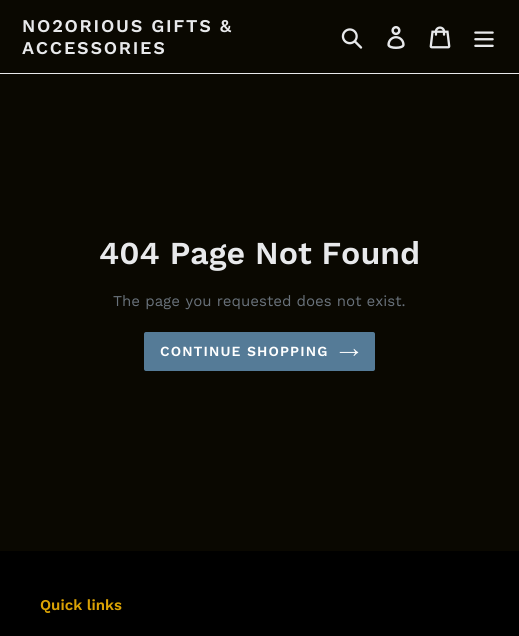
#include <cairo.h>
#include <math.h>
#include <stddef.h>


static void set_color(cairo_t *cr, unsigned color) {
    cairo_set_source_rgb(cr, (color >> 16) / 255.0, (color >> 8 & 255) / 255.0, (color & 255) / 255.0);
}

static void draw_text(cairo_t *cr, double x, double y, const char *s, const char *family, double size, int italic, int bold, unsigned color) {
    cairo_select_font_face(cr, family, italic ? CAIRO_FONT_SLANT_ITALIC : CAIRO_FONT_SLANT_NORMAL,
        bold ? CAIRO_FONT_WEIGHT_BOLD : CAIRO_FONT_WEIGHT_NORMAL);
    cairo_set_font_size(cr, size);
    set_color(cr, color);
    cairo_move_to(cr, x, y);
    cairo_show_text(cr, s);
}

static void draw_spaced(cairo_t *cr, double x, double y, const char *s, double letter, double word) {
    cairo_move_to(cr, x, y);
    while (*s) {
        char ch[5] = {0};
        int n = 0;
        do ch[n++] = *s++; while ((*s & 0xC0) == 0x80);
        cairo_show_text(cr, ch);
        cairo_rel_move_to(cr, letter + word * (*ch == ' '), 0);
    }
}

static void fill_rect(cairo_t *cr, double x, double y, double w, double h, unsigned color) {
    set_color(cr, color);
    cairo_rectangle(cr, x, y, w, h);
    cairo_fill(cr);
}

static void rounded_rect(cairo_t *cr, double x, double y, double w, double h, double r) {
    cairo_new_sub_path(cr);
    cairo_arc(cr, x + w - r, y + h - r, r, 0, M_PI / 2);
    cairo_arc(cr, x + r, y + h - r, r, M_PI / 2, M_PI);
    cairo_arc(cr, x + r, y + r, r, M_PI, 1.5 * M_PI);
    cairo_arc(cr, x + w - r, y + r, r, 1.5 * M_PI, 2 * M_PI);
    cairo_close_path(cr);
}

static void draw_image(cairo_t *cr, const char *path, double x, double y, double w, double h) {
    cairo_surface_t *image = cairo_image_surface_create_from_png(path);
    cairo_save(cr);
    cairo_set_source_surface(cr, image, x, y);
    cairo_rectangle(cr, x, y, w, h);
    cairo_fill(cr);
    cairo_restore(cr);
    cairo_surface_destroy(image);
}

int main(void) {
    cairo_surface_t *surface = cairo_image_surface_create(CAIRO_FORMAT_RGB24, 519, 636);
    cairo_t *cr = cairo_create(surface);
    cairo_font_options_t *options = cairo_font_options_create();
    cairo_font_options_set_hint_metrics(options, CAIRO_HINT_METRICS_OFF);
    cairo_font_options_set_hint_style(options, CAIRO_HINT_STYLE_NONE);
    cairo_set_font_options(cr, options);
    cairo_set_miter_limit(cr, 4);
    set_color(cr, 0x0A0801);
    cairo_paint(cr);
    fill_rect(cr, 0, 73, 519, 1, 0xE8E9EB);
    cairo_select_font_face(cr, "Work Sans SemiBold", CAIRO_FONT_SLANT_NORMAL, CAIRO_FONT_WEIGHT_NORMAL);
    cairo_set_font_size(cr, 18);
    draw_spaced(cr, 22, 32, "NO2ORIOUS GIFTS &", 1.75, 0);
    draw_spaced(cr, 22, 54, "ACCESSORIES", 1.75, 0);
    draw_image(cr, "assets/img1.png", 341, 28, 22, 21);
    draw_image(cr, "assets/img2.png", 387, 26, 18, 23);
    draw_image(cr, "assets/img3.png", 429, 26, 22, 23);
    draw_image(cr, "assets/img4.png", 474, 31, 20, 16);
    draw_text(cr, 99, 264, "404 Page Not Found", "Work Sans SemiBold", 32, 0, 0, 0xE8E9EB);
    draw_text(cr, 113, 306, "The page you requested does not exist.", "Work Sans", 15, 0, 0, 0x69727B);
    set_color(cr, 0x557B97);
    rounded_rect(cr, 144, 332, 231, 39, 2);
    cairo_fill(cr);
    cairo_select_font_face(cr, "Work Sans SemiBold", CAIRO_FONT_SLANT_NORMAL, CAIRO_FONT_WEIGHT_NORMAL);
    cairo_set_font_size(cr, 14);
    set_color(cr, 0xFFFFFF);
    draw_spaced(cr, 160, 356, "CONTINUE SHOPPING", 1.1, 0);
    draw_image(cr, "assets/img5.png", 339, 348, 20, 8);
    fill_rect(cr, 0, 551, 519, 85, 0x000000);
    draw_text(cr, 40, 610, "Quick links", "Work Sans SemiBold", 15, 0, 0, 0xDBA304);
    cairo_surface_write_to_png(surface, "output.png");
    cairo_font_options_destroy(options);
    cairo_destroy(cr);
    cairo_surface_destroy(surface);
    return 0;
}
